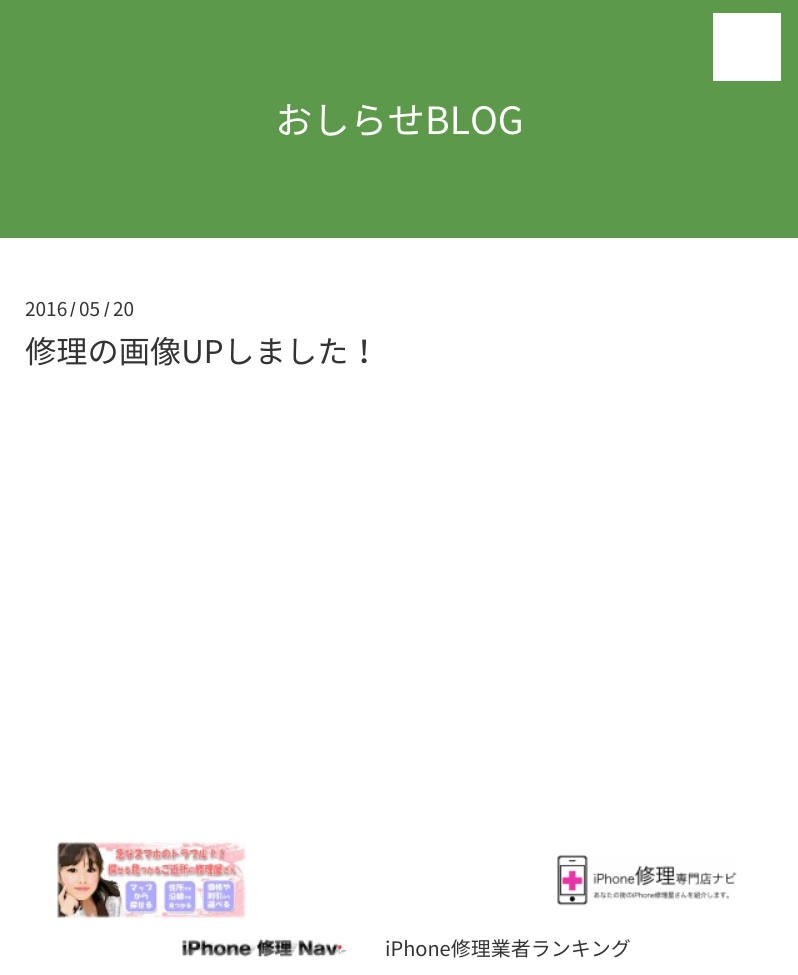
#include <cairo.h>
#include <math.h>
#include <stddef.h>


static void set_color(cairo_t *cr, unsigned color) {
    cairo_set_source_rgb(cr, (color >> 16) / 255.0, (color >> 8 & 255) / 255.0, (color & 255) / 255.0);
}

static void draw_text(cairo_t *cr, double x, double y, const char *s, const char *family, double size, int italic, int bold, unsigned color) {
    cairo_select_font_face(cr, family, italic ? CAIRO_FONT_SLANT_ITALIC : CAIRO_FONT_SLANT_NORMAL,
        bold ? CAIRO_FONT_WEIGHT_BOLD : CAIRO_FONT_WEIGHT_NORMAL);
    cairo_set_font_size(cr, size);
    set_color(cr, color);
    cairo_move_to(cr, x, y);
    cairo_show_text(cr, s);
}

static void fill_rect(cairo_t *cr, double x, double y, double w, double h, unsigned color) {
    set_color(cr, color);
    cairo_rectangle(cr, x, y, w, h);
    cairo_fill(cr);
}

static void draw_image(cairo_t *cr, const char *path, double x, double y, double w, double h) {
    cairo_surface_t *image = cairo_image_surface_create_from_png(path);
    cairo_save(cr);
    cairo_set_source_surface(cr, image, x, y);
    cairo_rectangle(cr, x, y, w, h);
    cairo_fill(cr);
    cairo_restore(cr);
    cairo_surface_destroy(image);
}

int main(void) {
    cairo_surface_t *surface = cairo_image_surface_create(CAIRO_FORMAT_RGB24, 798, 975);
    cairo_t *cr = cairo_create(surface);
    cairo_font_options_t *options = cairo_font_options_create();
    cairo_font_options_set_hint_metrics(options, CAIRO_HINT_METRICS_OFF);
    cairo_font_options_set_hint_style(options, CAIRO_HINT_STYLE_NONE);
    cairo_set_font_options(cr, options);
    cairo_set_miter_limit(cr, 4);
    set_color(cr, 0xFFFFFF);
    cairo_paint(cr);
    fill_rect(cr, 0, 0, 798, 238, 0x5D994A);
    fill_rect(cr, 713, 13, 68, 68, 0xFFFFFF);
    draw_text(cr, 275, 134, "おしらせBLOG", "Noto Sans JP", 37.5, 0, 0, 0xFFFFFF);
    draw_text(cr, 25, 316, "2016", "Noto Sans JP", 19, 0, 0, 0x333333);
    draw_text(cr, 70, 314, "/", "Noto Sans JP", 15, 0, 1, 0x333333);
    draw_text(cr, 79, 316, "05", "Noto Sans JP", 19, 0, 0, 0x333333);
    draw_text(cr, 104, 314, "/", "Noto Sans JP", 15, 0, 1, 0x333333);
    draw_text(cr, 113, 316, "20", "Noto Sans JP", 19, 0, 0, 0x333333);
    draw_text(cr, 25, 363, "修理の画像UPしました！", "Noto Sans JP", 31.25, 0, 0, 0x333333);
    draw_image(cr, "assets/img1.png", 57, 842, 188, 76);
    draw_image(cr, "assets/img2.png", 556, 854, 181, 52);
    draw_image(cr, "assets/img3.png", 182, 938, 165, 20);
    draw_text(cr, 385, 956, "iPhone修理業者ランキング", "Noto Sans JP", 20, 0, 0, 0x333333);
    cairo_surface_write_to_png(surface, "output.png");
    cairo_font_options_destroy(options);
    cairo_destroy(cr);
    cairo_surface_destroy(surface);
    return 0;
}
